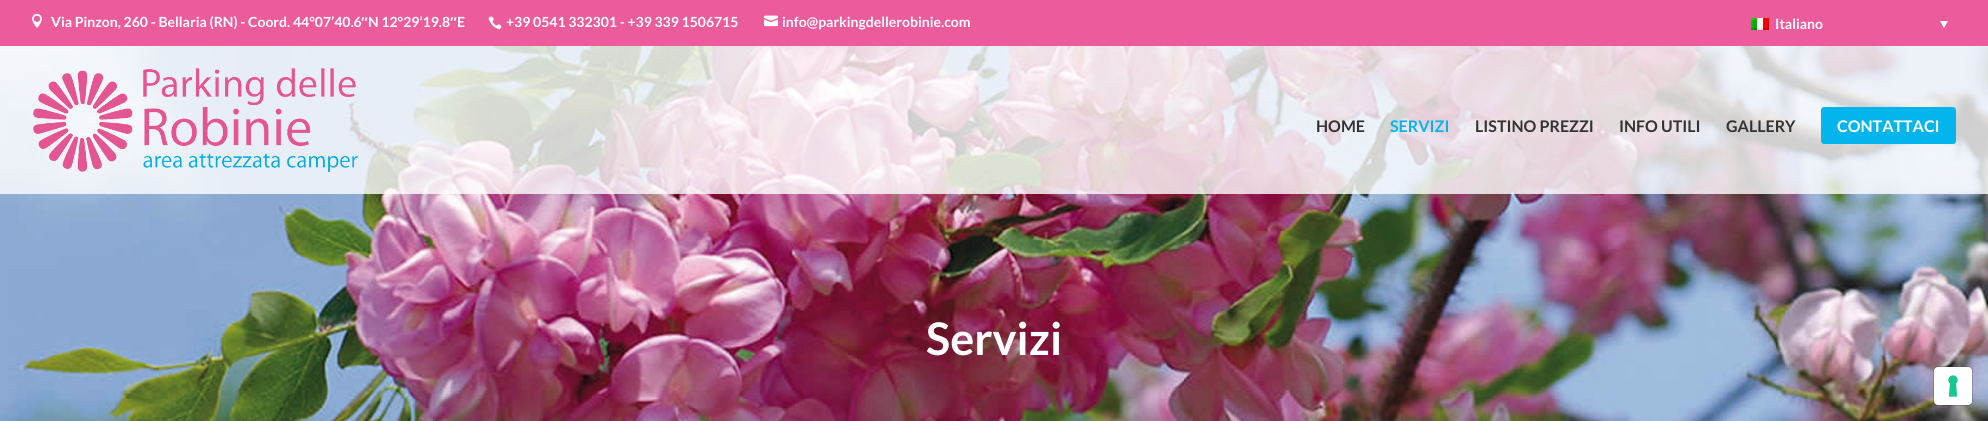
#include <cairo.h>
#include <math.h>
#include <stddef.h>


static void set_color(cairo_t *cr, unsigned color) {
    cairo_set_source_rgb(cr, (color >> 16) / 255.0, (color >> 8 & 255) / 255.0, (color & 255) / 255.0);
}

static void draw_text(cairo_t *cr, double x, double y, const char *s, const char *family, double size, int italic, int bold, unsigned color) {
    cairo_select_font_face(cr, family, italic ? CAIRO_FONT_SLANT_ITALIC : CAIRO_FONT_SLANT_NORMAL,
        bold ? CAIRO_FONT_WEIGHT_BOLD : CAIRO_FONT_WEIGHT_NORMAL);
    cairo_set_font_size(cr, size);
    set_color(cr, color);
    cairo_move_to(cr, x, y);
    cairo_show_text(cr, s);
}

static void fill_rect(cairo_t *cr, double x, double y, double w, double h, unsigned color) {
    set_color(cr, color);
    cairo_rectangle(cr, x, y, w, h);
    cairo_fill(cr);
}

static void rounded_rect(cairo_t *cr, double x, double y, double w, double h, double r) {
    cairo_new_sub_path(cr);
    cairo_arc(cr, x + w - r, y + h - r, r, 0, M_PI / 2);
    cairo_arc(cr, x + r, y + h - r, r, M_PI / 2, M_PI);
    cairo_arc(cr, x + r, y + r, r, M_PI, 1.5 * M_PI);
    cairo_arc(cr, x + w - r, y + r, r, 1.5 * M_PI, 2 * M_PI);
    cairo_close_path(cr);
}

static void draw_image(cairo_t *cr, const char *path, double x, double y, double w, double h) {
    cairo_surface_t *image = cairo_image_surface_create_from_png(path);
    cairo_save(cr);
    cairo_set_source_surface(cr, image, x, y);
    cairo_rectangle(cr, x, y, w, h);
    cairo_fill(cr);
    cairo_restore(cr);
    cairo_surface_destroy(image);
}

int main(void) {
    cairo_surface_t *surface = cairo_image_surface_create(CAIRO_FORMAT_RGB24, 1988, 421);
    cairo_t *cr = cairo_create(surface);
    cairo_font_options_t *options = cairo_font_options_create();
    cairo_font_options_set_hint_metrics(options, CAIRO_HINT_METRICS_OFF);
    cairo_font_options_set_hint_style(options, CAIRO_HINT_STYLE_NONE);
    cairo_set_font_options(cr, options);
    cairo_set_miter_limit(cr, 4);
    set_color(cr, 0xFFFFFF);
    cairo_paint(cr);
    fill_rect(cr, 0, 0, 1988, 46, 0xEC5C9D);
    draw_image(cr, "assets/img1.png", 32, 13, 10, 15);
    draw_text(cr, 51, 27, "Via Pinzon, 260 - Bellaria (RN) - Coord. 44°07’40.6", "Lato", 14, 0, 1, 0xFFFFFF);
    draw_text(cr, 361, 27, "″", "Liberation Sans", 14, 0, 1, 0xFFFFFF);
    draw_text(cr, 368, 27, "N 12°29’19.8", "Lato", 14, 0, 1, 0xFFFFFF);
    draw_text(cr, 450, 27, "″", "Liberation Sans", 14, 0, 1, 0xFFFFFF);
    draw_text(cr, 457, 27, "E", "Lato", 14, 0, 1, 0xFFFFFF);
    draw_image(cr, "assets/img2.png", 488, 16, 14, 14);
    draw_text(cr, 506, 27, "+39 0541 332301 - +39 339 1506715", "Lato", 14, 0, 1, 0xFFFFFF);
    draw_image(cr, "assets/img3.png", 764, 15, 14, 12);
    draw_text(cr, 782, 27, "info@parkingdellerobinie.com", "Lato", 14, 0, 1, 0xFFFFFF);
    draw_image(cr, "assets/img4.png", 1751, 18, 18, 12);
    draw_text(cr, 1775, 29, "Italiano", "Lato", 14, 0, 1, 0xFFFFFF);
    cairo_new_path(cr);
    cairo_move_to(cr, 1940, 21);
    cairo_line_to(cr, 1948, 21);
    cairo_line_to(cr, 1944, 28);
    cairo_close_path(cr);
    cairo_fill(cr);
    draw_image(cr, "assets/img6.png", 0, 46, 1988, 375);
    cairo_set_source_rgba(cr, 1, 1, 1, 0.8);
    cairo_rectangle(cr, 0, 46, 1988, 148);
    cairo_fill(cr);
    draw_image(cr, "assets/img5.png", 33, 68, 325, 104);
    draw_text(cr, 1316, 132, "HOME", "Lato", 16, 0, 1, 0x333333);
    draw_text(cr, 1390, 132, "SERVIZI", "Lato", 16, 0, 1, 0x02B6ED);
    draw_text(cr, 1475, 132, "LISTINO PREZZI", "Lato", 16, 0, 1, 0x333333);
    draw_text(cr, 1619, 132, "INFO UTILI", "Lato", 16, 0, 1, 0x333333);
    draw_text(cr, 1726, 132, "GALLERY", "Lato", 16, 0, 1, 0x333333);
    set_color(cr, 0x02B6ED);
    rounded_rect(cr, 1821, 107, 135, 37, 3);
    cairo_fill(cr);
    draw_text(cr, 1837, 132, "CONTATTACI", "Lato", 16, 0, 1, 0xFFFFFF);
    draw_text(cr, 926, 355, "Servizi", "Lato", 45, 0, 1, 0xFFFFFF);
    rounded_rect(cr, 1933.5, 366.5, 39, 39, 4.5);
    cairo_set_source_rgba(cr, 0, 0, 0, 0.15);
    cairo_set_line_width(cr, 1);
    cairo_stroke(cr);
    set_color(cr, 0xFFFFFF);
    rounded_rect(cr, 1934, 367, 38, 38, 4);
    cairo_fill(cr);
    draw_image(cr, "assets/img7.png", 1948, 375, 10, 22);
    cairo_surface_write_to_png(surface, "output.png");
    cairo_font_options_destroy(options);
    cairo_destroy(cr);
    cairo_surface_destroy(surface);
    return 0;
}
